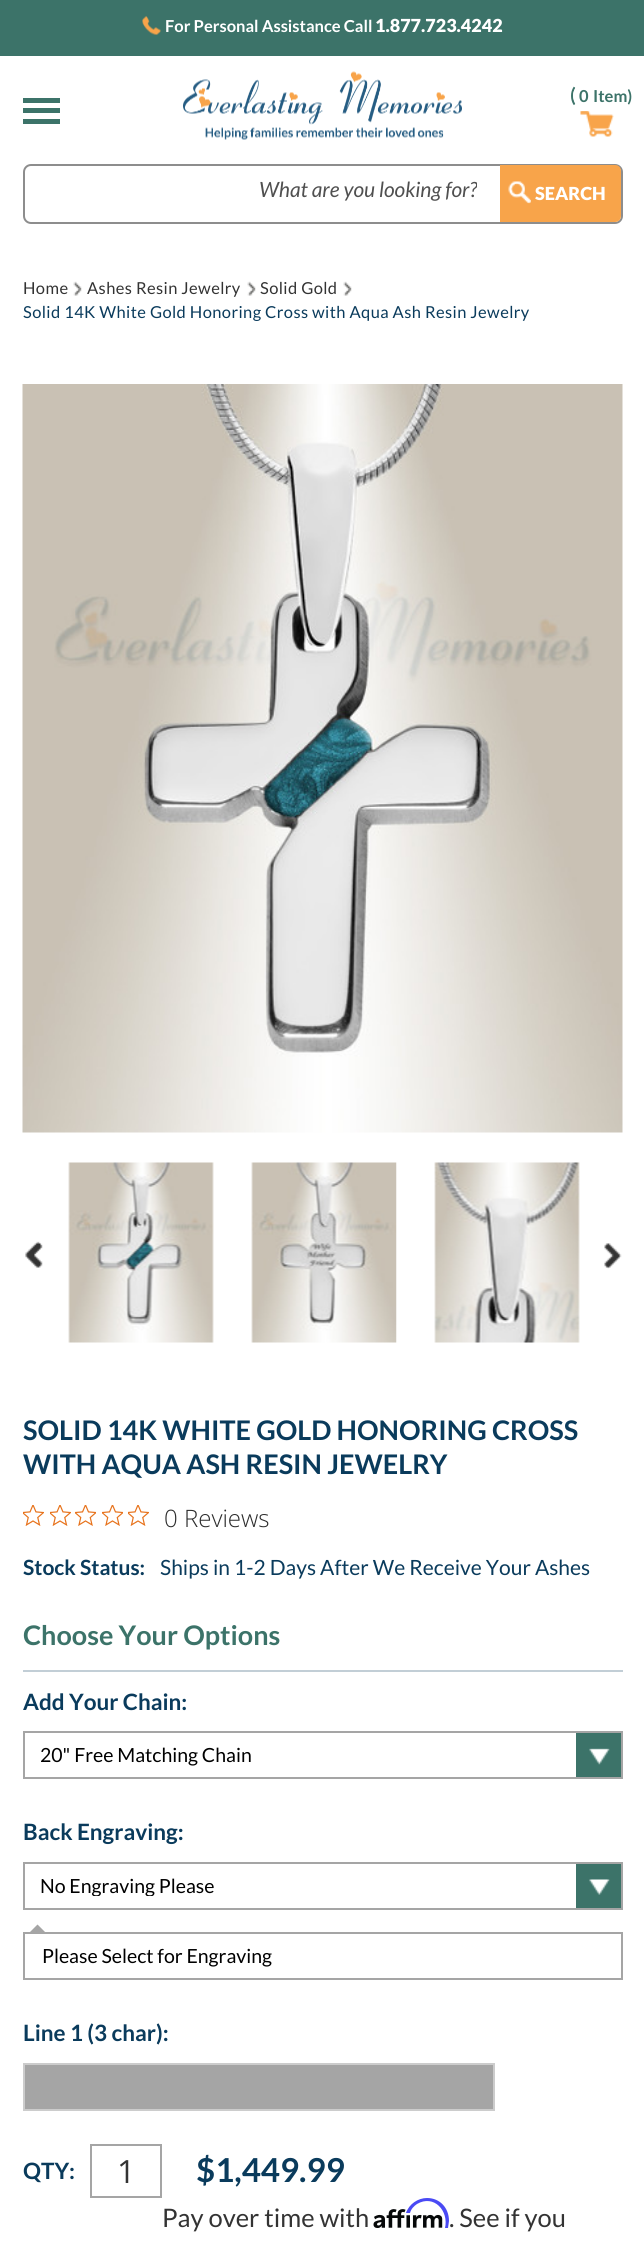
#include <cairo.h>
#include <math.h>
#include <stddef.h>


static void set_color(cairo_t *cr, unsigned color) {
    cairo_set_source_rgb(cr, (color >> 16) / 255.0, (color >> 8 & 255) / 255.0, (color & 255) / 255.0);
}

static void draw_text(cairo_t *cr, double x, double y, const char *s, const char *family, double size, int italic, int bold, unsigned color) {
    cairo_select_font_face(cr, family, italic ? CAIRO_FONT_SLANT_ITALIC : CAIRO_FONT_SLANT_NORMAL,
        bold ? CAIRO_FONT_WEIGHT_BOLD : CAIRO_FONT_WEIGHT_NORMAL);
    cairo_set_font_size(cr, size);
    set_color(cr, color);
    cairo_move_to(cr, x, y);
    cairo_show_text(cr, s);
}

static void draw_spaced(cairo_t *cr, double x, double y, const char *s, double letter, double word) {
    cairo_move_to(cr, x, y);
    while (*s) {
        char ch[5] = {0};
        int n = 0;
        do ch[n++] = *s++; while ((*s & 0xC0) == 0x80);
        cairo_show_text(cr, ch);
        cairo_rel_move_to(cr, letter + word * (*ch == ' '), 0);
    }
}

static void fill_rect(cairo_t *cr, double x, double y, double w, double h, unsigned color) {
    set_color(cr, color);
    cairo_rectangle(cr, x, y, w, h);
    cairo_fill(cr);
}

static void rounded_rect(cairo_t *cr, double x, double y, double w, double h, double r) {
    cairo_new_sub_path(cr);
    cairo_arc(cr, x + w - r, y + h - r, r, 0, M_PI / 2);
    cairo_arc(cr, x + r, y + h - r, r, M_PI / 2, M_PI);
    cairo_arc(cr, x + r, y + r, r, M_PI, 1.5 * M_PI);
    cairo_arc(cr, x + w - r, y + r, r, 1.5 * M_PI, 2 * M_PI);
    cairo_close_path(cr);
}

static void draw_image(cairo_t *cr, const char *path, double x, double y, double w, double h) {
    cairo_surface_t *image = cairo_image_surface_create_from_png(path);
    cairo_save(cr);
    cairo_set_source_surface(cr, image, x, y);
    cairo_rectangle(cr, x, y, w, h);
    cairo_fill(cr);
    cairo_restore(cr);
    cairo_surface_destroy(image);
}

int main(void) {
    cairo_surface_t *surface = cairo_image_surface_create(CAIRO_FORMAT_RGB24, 644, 2246);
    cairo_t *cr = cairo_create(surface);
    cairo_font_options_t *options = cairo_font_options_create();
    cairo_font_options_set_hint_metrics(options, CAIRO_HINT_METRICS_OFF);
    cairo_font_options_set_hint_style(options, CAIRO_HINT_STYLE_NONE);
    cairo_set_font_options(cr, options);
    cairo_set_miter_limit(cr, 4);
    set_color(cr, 0xFFFFFF);
    cairo_paint(cr);
    fill_rect(cr, 0, 0, 644, 56, 0x3C7369);
    draw_image(cr, "assets/img1.png", 142, 16, 19, 19);
    draw_text(cr, 165, 32, "For Personal Assistance Call", "Lato", 16.5, 0, 1, 0xFFFFFF);
    draw_text(cr, 375, 32, "1.877.723.4242", "Lato Black", 18, 0, 0, 0xFFFFFF);
    draw_image(cr, "assets/img2.png", 183, 71, 279, 69);
    rounded_rect(cr, 24, 165, 598, 58, 7);
    set_color(cr, 0x8D8D8D);
    cairo_stroke(cr);
    cairo_save(cr);
    cairo_rectangle(cr, 47, 176, 430, 25);
    cairo_clip(cr);
    draw_text(cr, 259, 197, "What are you looking for?", "Lato", 21, 1, 0, 0x505050);
    cairo_restore(cr);
    set_color(cr, 0xF8A44A);
    cairo_new_path(cr);
    cairo_move_to(cr, 500, 165);
    cairo_line_to(cr, 615, 165);
    cairo_curve_to(cr, 618.5, 165, 621, 167.5, 621, 171);
    cairo_line_to(cr, 621, 216);
    cairo_curve_to(cr, 621, 219.5, 618.5, 222, 615, 222);
    cairo_line_to(cr, 500, 222);
    cairo_close_path(cr);
    cairo_fill(cr);
    draw_image(cr, "assets/img3.png", 508, 181, 23, 23);
    draw_text(cr, 535, 200, "SEARCH", "Lato Black", 18, 0, 0, 0xFFFFFF);
    draw_image(cr, "assets/img4.png", 580, 111, 34, 26);
    draw_text(cr, 570, 102, "(", "Lato", 19.5, 0, 1, 0x3C7369);
    set_color(cr, 0xFFFFFF);
    cairo_new_path(cr);
    cairo_arc(cr, 584.5, 95.5, 11.5, 0, 2 * M_PI);
    cairo_fill(cr);
    draw_text(cr, 579, 102, "0", "Lato", 16.5, 0, 1, 0x3C7369);
    draw_text(cr, 593, 102, "Item)", "Lato", 16.5, 0, 1, 0x3C7369);
    fill_rect(cr, 23, 108, 37, 5, 0x3C7369);
    fill_rect(cr, 23, 98, 37, 5, 0x3C7369);
    fill_rect(cr, 23, 119, 37, 5, 0x3C7369);
    draw_image(cr, "assets/img5.png", 73, 281, 9, 15);
    cairo_select_font_face(cr, "Lato", CAIRO_FONT_SLANT_NORMAL, CAIRO_FONT_WEIGHT_NORMAL);
    set_color(cr, 0x333333);
    draw_spaced(cr, 23, 294, "Home", 0.4, 0);
    draw_image(cr, "assets/img5.png", 247, 281, 9, 15);
    draw_spaced(cr, 87, 294, "Ashes Resin Jewelry", 0.4, 0);
    draw_image(cr, "assets/img5.png", 343, 281, 9, 15);
    draw_spaced(cr, 260, 294, "Solid Gold", 0.4, 0);
    set_color(cr, 0x0A3B5C);
    draw_spaced(cr, 23, 318, "Solid 14K White Gold Honoring Cross with Aqua Ash Resin Jewelry", 0.4, 0);
    draw_image(cr, "assets/img6.png", 22, 384, 601, 749);
    draw_image(cr, "assets/img7.png", 25, 1241, 18, 27);
    draw_image(cr, "assets/img8.png", 68, 1162, 146, 181);
    draw_image(cr, "assets/img9.png", 251, 1162, 146, 181);
    draw_image(cr, "assets/img10.png", 434, 1162, 146, 181);
    draw_image(cr, "assets/img11.png", 604, 1243, 18, 26);
    draw_text(cr, 23, 1440, "SOLID 14K WHITE GOLD HONORING CROSS", "Lato", 27, 0, 1, 0x0A3B5C);
    draw_text(cr, 23, 1474, "WITH AQUA ASH RESIN JEWELRY", "Lato", 27, 0, 1, 0x0A3B5C);
    draw_image(cr, "assets/img12.png", 23, 1505, 21, 21);
    draw_image(cr, "assets/img12.png", 50, 1505, 21, 21);
    draw_image(cr, "assets/img13.png", 75, 1505, 21, 21);
    draw_image(cr, "assets/img13.png", 102, 1505, 21, 21);
    draw_image(cr, "assets/img12.png", 128, 1505, 21, 21);
    draw_text(cr, 164, 1527, "0 Reviews", "Open Sans Light", 24, 0, 0, 0x2C2C2C);
    draw_text(cr, 23, 1575, "Stock Status:", "Lato", 21, 0, 1, 0x0A3B5C);
    draw_text(cr, 160, 1575, "Ships in 1-2 Days After We Receive Your Ashes", "Lato", 21, 0, 0, 0x0A3B5C);
    fill_rect(cr, 23, 1670, 600, 2, 0xC2CED6);
    draw_text(cr, 23, 1645, "Choose Your Options", "Lato", 27, 0, 1, 0x3C7369);
    draw_text(cr, 23, 1710, "Add Your Chain:", "Lato", 22.5, 0, 1, 0x0A3B5C);
    draw_image(cr, "assets/img14.png", 576, 1733, 45, 44);
    cairo_rectangle(cr, 24, 1732, 598, 46);
    set_color(cr, 0xA5A5A5);
    cairo_stroke(cr);
    draw_text(cr, 40, 1762, "20\" Free Matching Chain", "Lato", 19.5, 0, 0, 0x000000);
    draw_text(cr, 23, 1840, "Back Engraving:", "Lato", 22.5, 0, 1, 0x0A3B5C);
    draw_image(cr, "assets/img15.png", 576, 1864, 45, 44);
    cairo_rectangle(cr, 24, 1863, 598, 46);
    set_color(cr, 0xA5A5A5);
    cairo_stroke(cr);
    cairo_save(cr);
    cairo_rectangle(cr, 41, 1875, 517, 21);
    cairo_clip(cr);
    draw_text(cr, 40, 1893, "No Engraving Please", "Lato", 19.5, 0, 0, 0x000000);
    cairo_restore(cr);
    cairo_rectangle(cr, 24, 1933, 598, 46);
    cairo_stroke(cr);
    cairo_new_path(cr);
    cairo_move_to(cr, 46.5, 1933.5);
    cairo_line_to(cr, 28.5, 1933.5);
    cairo_line_to(cr, 37.5, 1924.5);
    cairo_close_path(cr);
    cairo_fill(cr);
    draw_text(cr, 42, 1963, "Please Select for Engraving", "Lato", 19.5, 0, 0, 0x000000);
    draw_text(cr, 23, 2041, "Line 1 (3 char):", "Lato", 22.5, 0, 1, 0x0A3B5C);
    set_color(cr, 0xA5A5A5);
    cairo_rectangle(cr, 24, 2064, 470, 46);
    cairo_fill_preserve(cr);
    set_color(cr, 0xCCCCCC);
    cairo_stroke(cr);
    draw_text(cr, 23, 2179, "QTY:", "Lato", 22.5, 0, 1, 0x0A3B5C);
    cairo_rectangle(cr, 91, 2145, 70, 52);
    set_color(cr, 0xA5A5A5);
    cairo_stroke(cr);
    draw_text(cr, 117, 2183, "1", "Open Sans", 32, 0, 0, 0x333333);
    draw_text(cr, 196, 2182, "$1,449.99", "Lato", 33, 0, 1, 0x0A3B5C);
    draw_text(cr, 162, 2227, "Pay over time with", "Lato", 25.5, 0, 0, 0x333333);
    draw_image(cr, "assets/img16.png", 373, 2209, 70, 19);
    set_color(cr, 0x4A4AF4);
    cairo_new_path(cr);
    cairo_move_to(cr, 427, 2198);
    cairo_curve_to(cr, 418, 2198, 409, 2204, 406, 2213);
    cairo_line_to(cr, 410, 2213);
    cairo_curve_to(cr, 411, 2209, 414, 2206, 417, 2204);
    cairo_curve_to(cr, 434, 2194, 449, 2211, 445, 2228);
    cairo_line_to(cr, 448, 2228);
    cairo_line_to(cr, 449, 2221);
    cairo_curve_to(cr, 449, 2208, 440, 2198, 427, 2198);
    cairo_close_path(cr);
    cairo_fill(cr);
    draw_text(cr, 449, 2227, ". See if you", "Lato", 25.5, 0, 0, 0x333333);
    cairo_surface_write_to_png(surface, "output.png");
    cairo_font_options_destroy(options);
    cairo_destroy(cr);
    cairo_surface_destroy(surface);
    return 0;
}
